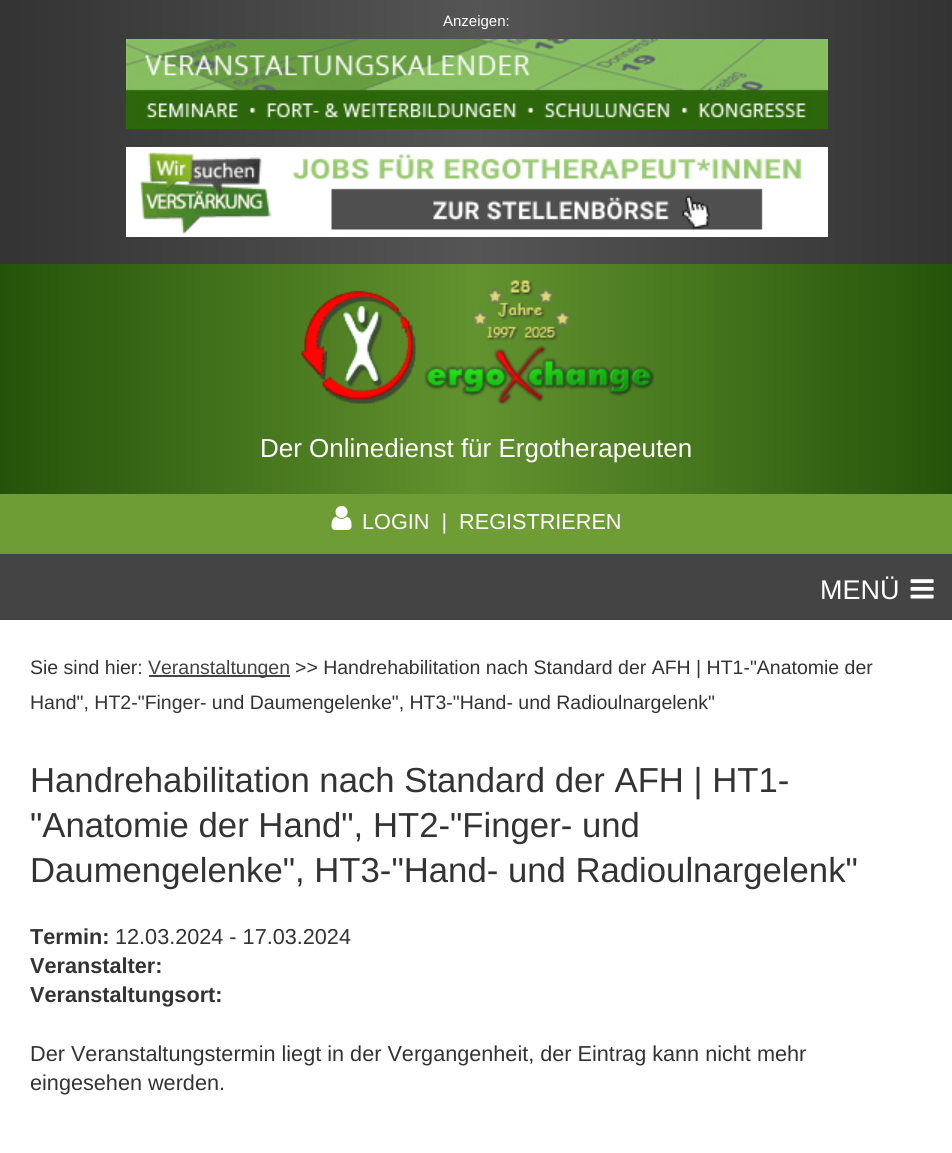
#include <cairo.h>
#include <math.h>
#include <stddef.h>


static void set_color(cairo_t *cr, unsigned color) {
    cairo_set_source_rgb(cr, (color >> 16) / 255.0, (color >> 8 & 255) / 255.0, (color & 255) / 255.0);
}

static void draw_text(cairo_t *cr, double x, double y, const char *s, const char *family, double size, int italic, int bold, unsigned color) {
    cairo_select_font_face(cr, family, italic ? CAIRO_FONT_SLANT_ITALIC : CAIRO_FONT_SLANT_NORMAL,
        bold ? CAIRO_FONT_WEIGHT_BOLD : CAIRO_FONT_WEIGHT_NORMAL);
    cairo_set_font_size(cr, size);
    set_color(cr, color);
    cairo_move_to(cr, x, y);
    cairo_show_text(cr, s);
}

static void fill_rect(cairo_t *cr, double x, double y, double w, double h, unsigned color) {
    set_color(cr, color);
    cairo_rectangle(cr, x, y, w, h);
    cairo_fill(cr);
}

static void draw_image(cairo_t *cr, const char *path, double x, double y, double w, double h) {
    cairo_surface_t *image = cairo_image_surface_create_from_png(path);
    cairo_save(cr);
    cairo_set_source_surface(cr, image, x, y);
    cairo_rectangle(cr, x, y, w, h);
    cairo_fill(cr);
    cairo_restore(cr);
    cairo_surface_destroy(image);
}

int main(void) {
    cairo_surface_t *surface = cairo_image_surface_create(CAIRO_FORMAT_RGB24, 952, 1153);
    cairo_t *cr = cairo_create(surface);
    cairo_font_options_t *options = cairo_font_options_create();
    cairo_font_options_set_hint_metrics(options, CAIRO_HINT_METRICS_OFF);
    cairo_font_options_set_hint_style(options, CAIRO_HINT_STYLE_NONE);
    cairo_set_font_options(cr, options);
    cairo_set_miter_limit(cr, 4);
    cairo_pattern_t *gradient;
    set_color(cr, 0xFFFFFF);
    cairo_paint(cr);
    gradient = cairo_pattern_create_linear(0, 132, 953, 132);
    cairo_pattern_add_color_stop_rgba(gradient, 0, 0.2, 0.2, 0.2, 1);
    cairo_pattern_add_color_stop_rgba(gradient, 0.5, 0.333, 0.333, 0.333, 1);
    cairo_pattern_add_color_stop_rgba(gradient, 1, 0.2, 0.2, 0.2, 1);
    cairo_set_source(cr, gradient);
    cairo_pattern_destroy(gradient);
    cairo_rectangle(cr, 0, 0, 952, 264);
    cairo_fill(cr);
    draw_text(cr, 443, 26, "Anzeigen:", "Liberation Sans", 15, 0, 0, 0xFFFFFF);
    draw_image(cr, "assets/img1.png", 126, 39, 702, 90);
    draw_image(cr, "assets/img2.png", 126, 147, 702, 90);
    gradient = cairo_pattern_create_linear(0, 409, 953, 409);
    cairo_pattern_add_color_stop_rgba(gradient, 0, 0.141, 0.329, 0.035, 1);
    cairo_pattern_add_color_stop_rgba(gradient, 0.5, 0.388, 0.576, 0.184, 1);
    cairo_pattern_add_color_stop_rgba(gradient, 1, 0.141, 0.329, 0.035, 1);
    cairo_set_source(cr, gradient);
    cairo_pattern_destroy(gradient);
    cairo_rectangle(cr, 0, 264, 952, 230);
    cairo_fill(cr);
    draw_image(cr, "assets/img3.png", 301, 280, 353, 125);
    draw_text(cr, 260, 457, "Der Onlinedienst für Ergotherapeuten", "Liberation Sans", 26, 0, 0, 0xFFFFFF);
    fill_rect(cr, 0, 494, 952, 60, 0x6E9D35);
    draw_image(cr, "assets/img4.png", 331, 505, 21, 25);
    draw_text(cr, 362, 529, "LOGIN  |  REGISTRIEREN", "Liberation Sans", 21.65, 0, 0, 0xFFFFFF);
    fill_rect(cr, 0, 554, 952, 66, 0x444444);
    draw_text(cr, 820, 599, "MENÜ", "Liberation Sans", 27, 0, 0, 0xFFFFFF);
    draw_image(cr, "assets/img5.png", 910, 579, 24, 20);
    draw_text(cr, 30, 674, "Sie sind hier:", "Liberation Sans", 19.5, 0, 0, 0x333333);
    fill_rect(cr, 149, 675, 141, 2, 0x444444);
    draw_text(cr, 148, 674, "Veranstaltungen", "Liberation Sans", 19.5, 0, 0, 0x444444);
    draw_text(cr, 295, 674, ">> Handrehabilitation nach Standard der AFH | HT1-\"Anatomie der", "Liberation Sans", 19.5, 0, 0, 0x333333);
    draw_text(cr, 30, 709, "Hand\", HT2-\"Finger- und Daumengelenke\", HT3-\"Hand- und Radioulnargelenk\"", "Liberation Sans", 19.5, 0, 0, 0x333333);
    draw_text(cr, 30, 792, "Handrehabilitation nach Standard der AFH | HT1-", "Liberation Sans", 34.7, 0, 0, 0x333333);
    draw_text(cr, 30, 837, "\"Anatomie der Hand\", HT2-\"Finger- und", "Liberation Sans", 34.7, 0, 0, 0x333333);
    draw_text(cr, 30, 882, "Daumengelenke\", HT3-\"Hand- und Radioulnargelenk\"", "Liberation Sans", 34.7, 0, 0, 0x333333);
    draw_text(cr, 30, 944, "Termin:", "Liberation Sans", 21.65, 0, 1, 0x333333);
    draw_text(cr, 115, 944, "12.03.2024 - 17.03.2024", "Liberation Sans", 21.65, 0, 0, 0x333333);
    draw_text(cr, 30, 973, "Veranstalter:", "Liberation Sans", 21.65, 0, 1, 0x333333);
    draw_text(cr, 30, 1002, "Veranstaltungsort:", "Liberation Sans", 21.65, 0, 1, 0x333333);
    draw_text(cr, 30, 1061, "Der Veranstaltungstermin liegt in der Vergangenheit, der Eintrag kann nicht mehr", "Liberation Sans", 21.65, 0, 0, 0x333333);
    draw_text(cr, 30, 1090, "eingesehen werden.", "Liberation Sans", 21.65, 0, 0, 0x333333);
    cairo_surface_write_to_png(surface, "output.png");
    cairo_font_options_destroy(options);
    cairo_destroy(cr);
    cairo_surface_destroy(surface);
    return 0;
}
